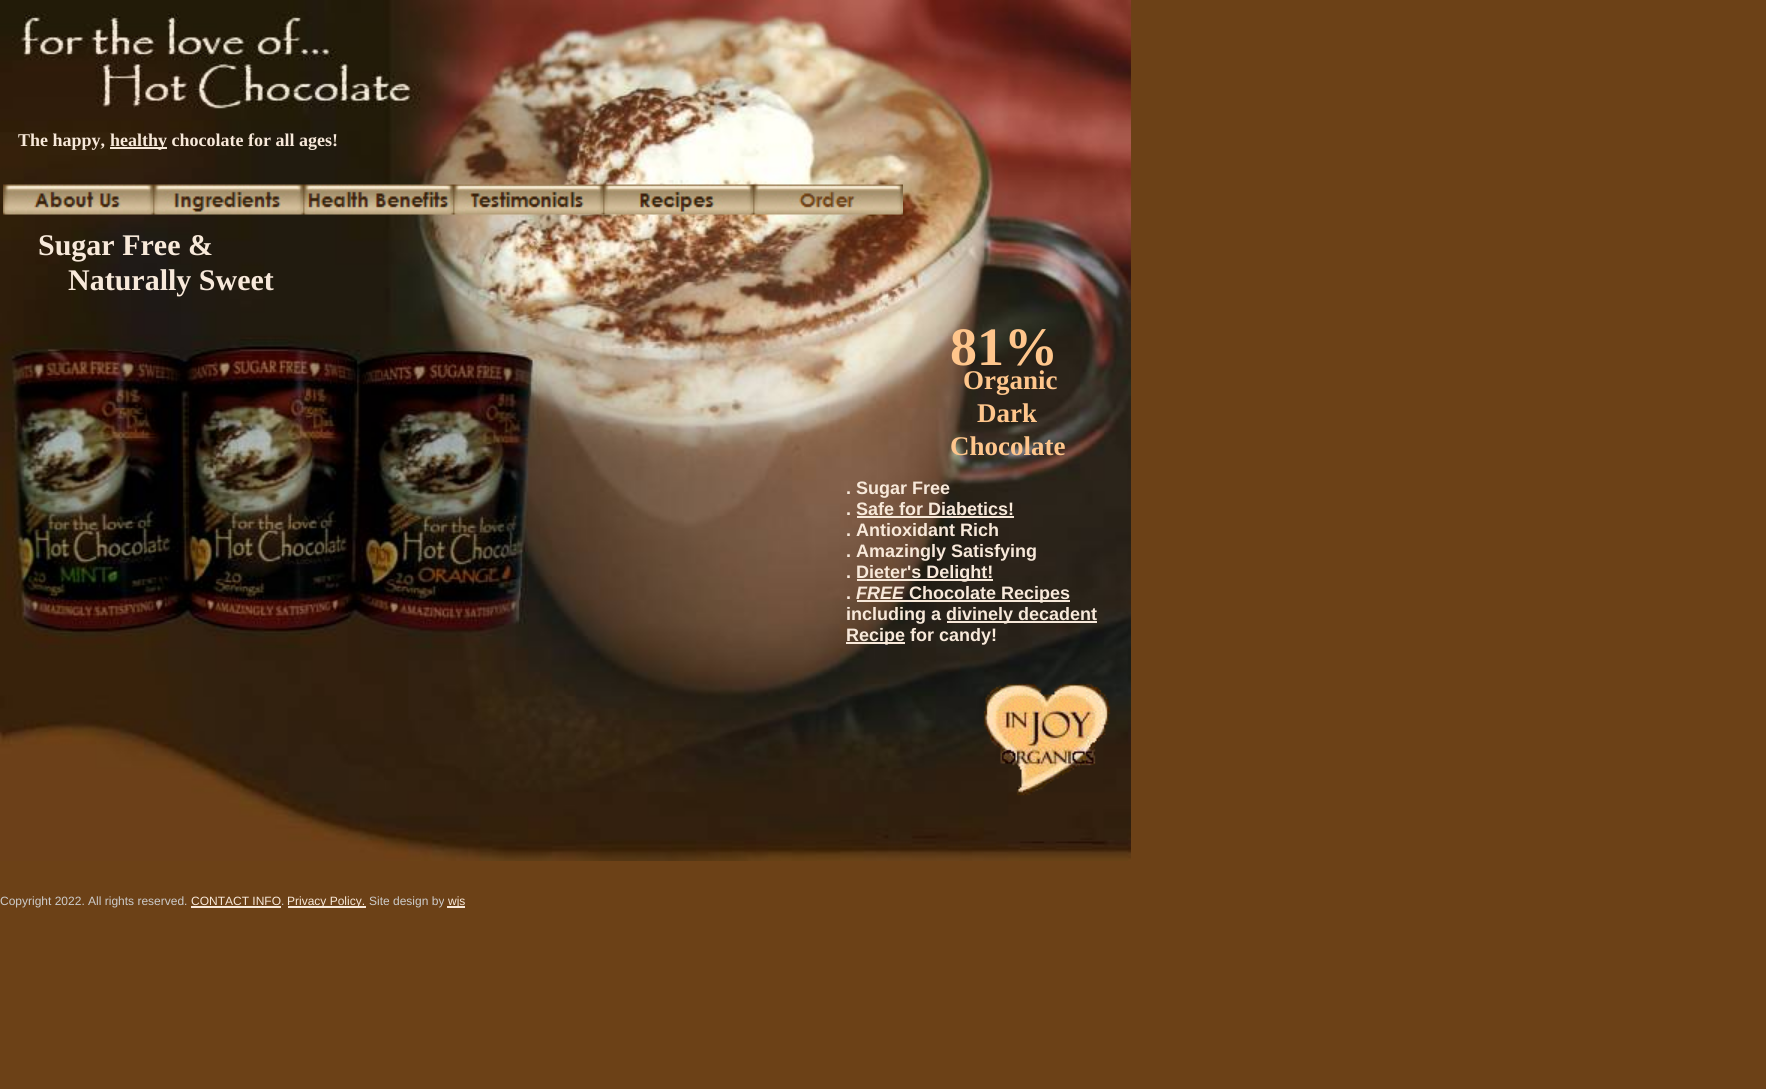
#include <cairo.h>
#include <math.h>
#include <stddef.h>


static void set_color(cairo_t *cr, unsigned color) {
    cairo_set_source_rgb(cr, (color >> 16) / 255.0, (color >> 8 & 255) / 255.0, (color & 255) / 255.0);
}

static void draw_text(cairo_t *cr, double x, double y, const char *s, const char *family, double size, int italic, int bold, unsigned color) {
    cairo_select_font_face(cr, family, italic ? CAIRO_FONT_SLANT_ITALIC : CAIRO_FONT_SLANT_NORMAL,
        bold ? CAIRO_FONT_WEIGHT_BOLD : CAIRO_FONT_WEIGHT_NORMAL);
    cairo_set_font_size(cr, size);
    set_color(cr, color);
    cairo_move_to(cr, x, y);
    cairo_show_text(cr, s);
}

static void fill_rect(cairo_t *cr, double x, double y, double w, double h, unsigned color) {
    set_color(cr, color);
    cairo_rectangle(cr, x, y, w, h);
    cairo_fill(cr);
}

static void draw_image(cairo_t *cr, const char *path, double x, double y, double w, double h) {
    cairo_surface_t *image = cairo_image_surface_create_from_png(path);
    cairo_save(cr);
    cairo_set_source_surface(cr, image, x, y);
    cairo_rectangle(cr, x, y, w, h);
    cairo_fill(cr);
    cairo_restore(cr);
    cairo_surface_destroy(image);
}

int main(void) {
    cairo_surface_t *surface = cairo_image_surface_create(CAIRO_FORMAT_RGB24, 1766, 1089);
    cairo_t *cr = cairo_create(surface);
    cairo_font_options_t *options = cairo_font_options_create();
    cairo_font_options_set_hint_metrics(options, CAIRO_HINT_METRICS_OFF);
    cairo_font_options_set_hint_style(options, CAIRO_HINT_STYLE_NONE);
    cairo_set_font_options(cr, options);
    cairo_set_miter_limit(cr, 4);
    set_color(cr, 0x6C4117);
    cairo_paint(cr);
    draw_image(cr, "assets/img7.png", 0, 0, 1131, 861);
    draw_text(cr, 18, 146, "The happy,", "Liberation Serif", 18, 0, 1, 0xF8E9DA);
    fill_rect(cr, 110, 147, 57, 2, 0xF8E9DA);
    draw_text(cr, 110, 146, "healthy chocolate for all ages!", "Liberation Serif", 18, 0, 1, 0xF8E9DA);
    draw_image(cr, "assets/img1.png", 3, 184, 150, 31);
    draw_image(cr, "assets/img2.png", 153, 184, 150, 31);
    draw_image(cr, "assets/img3.png", 303, 184, 150, 31);
    draw_image(cr, "assets/img4.png", 453, 184, 150, 31);
    draw_image(cr, "assets/img5.png", 603, 184, 150, 31);
    draw_image(cr, "assets/img6.png", 753, 184, 150, 31);
    draw_text(cr, 38, 255, "Sugar Free &", "Liberation Serif", 30, 0, 1, 0xF8E9DA);
    draw_text(cr, 68, 290, "Naturally Sweet", "Liberation Serif", 30, 0, 1, 0xF8E9DA);
    draw_text(cr, 950, 365, "81%", "Liberation Serif", 54, 0, 1, 0xFFC68C);
    draw_text(cr, 963, 389, "Organic", "Liberation Serif", 27, 0, 1, 0xFFC68C);
    draw_text(cr, 977, 422, "Dark", "Liberation Serif", 27, 0, 1, 0xFFC68C);
    draw_text(cr, 950, 455, "Chocolate", "Liberation Serif", 27, 0, 1, 0xFFC68C);
    draw_text(cr, 846, 494, ". Sugar Free", "Liberation Sans", 18, 0, 1, 0xF8E9DA);
    draw_text(cr, 846, 515, ".", "Liberation Sans", 18, 0, 1, 0xF8E9DA);
    draw_text(cr, 856, 515, "Safe for Diabetics!", "Liberation Sans", 18, 0, 1, 0xF8E9DA);
    fill_rect(cr, 857, 516, 157, 2, 0xF8E9DA);
    draw_text(cr, 846, 536, ". Antioxidant Rich", "Liberation Sans", 18, 0, 1, 0xF8E9DA);
    draw_text(cr, 846, 557, ". Amazingly Satisfying", "Liberation Sans", 18, 0, 1, 0xF8E9DA);
    draw_text(cr, 846, 578, ".", "Liberation Sans", 18, 0, 1, 0xF8E9DA);
    fill_rect(cr, 857, 579, 136, 2, 0xF8E9DA);
    draw_text(cr, 856, 578, "Dieter's Delight!", "Liberation Sans", 18, 0, 1, 0xF8E9DA);
    draw_text(cr, 846, 599, ".", "Liberation Sans", 18, 0, 1, 0xF8E9DA);
    draw_text(cr, 856, 599, "FREE", "Liberation Sans", 18, 1, 1, 0xF8E9DA);
    fill_rect(cr, 857, 600, 213, 2, 0xF8E9DA);
    draw_text(cr, 909, 599, "Chocolate Recipes", "Liberation Sans", 18, 0, 1, 0xF8E9DA);
    draw_text(cr, 846, 620, "including a", "Liberation Sans", 18, 0, 1, 0xF8E9DA);
    fill_rect(cr, 947, 621, 150, 2, 0xF8E9DA);
    draw_text(cr, 946, 620, "divinely decadent", "Liberation Sans", 18, 0, 1, 0xF8E9DA);
    fill_rect(cr, 846, 642, 59, 2, 0xF8E9DA);
    draw_text(cr, 846, 641, "Recipe", "Liberation Sans", 18, 0, 1, 0xF8E9DA);
    draw_text(cr, 910, 641, "for candy!", "Liberation Sans", 18, 0, 1, 0xF8E9DA);
    draw_image(cr, "assets/img8.png", 983, 683, 128, 113);
    draw_text(cr, 0, 905, "Copyright 2022. All rights reserved.", "Liberation Sans", 12, 0, 0, 0xCCCCCC);
    draw_text(cr, 191, 905, "CONTACT INFO", "Liberation Sans", 12, 0, 0, 0xF8E9DA);
    fill_rect(cr, 191, 906, 90, 2, 0xF8E9DA);
    draw_text(cr, 281, 905, ".", "Liberation Sans", 12, 0, 0, 0xCCCCCC);
    fill_rect(cr, 288, 906, 78, 2, 0xF8E9DA);
    draw_text(cr, 287, 905, "Privacy Policy.", "Liberation Sans", 12, 0, 0, 0xF8E9DA);
    draw_text(cr, 369, 905, "Site design by", "Liberation Sans", 12, 0, 0, 0xCCCCCC);
    fill_rect(cr, 447, 906, 18, 2, 0xF8E9DA);
    draw_text(cr, 448, 905, "wjs", "Liberation Sans", 12, 0, 0, 0xF8E9DA);
    cairo_surface_write_to_png(surface, "output.png");
    cairo_font_options_destroy(options);
    cairo_destroy(cr);
    cairo_surface_destroy(surface);
    return 0;
}
